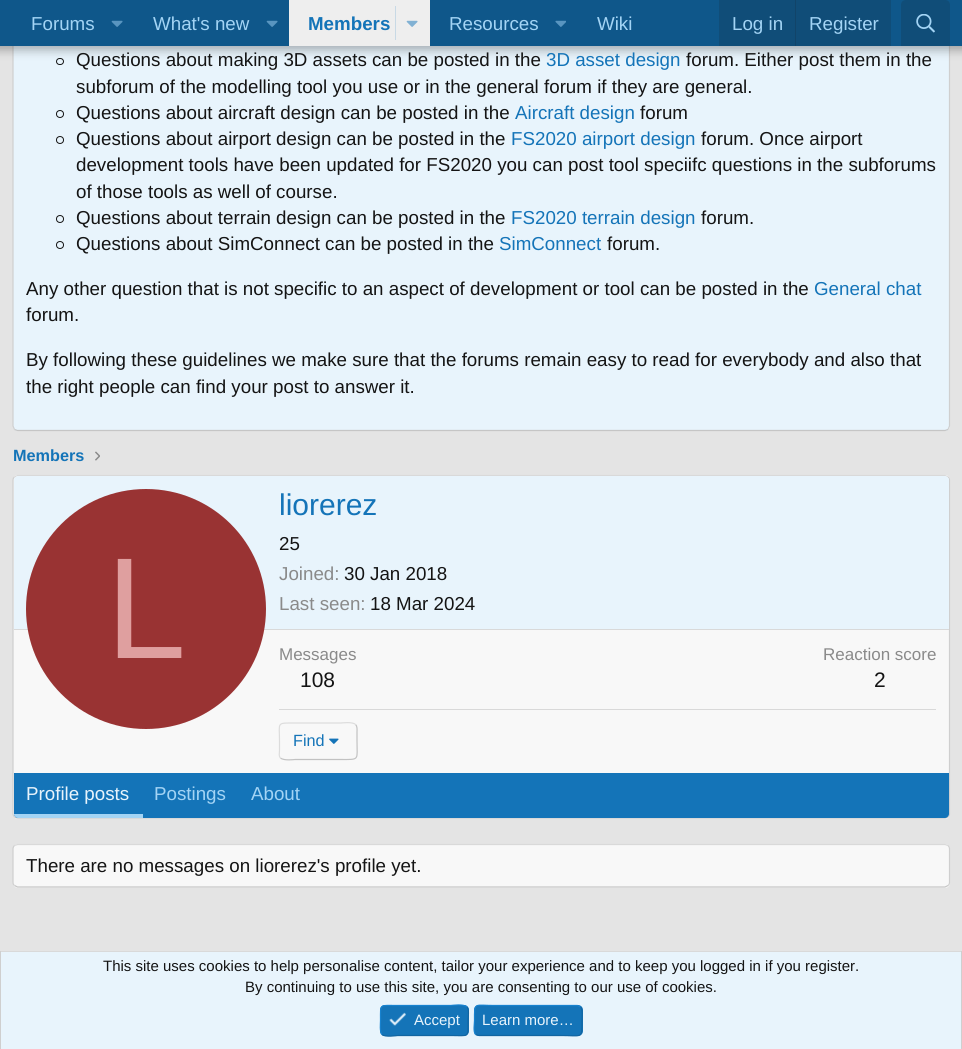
#include <cairo.h>
#include <math.h>
#include <stddef.h>


static void set_color(cairo_t *cr, unsigned color) {
    cairo_set_source_rgb(cr, (color >> 16) / 255.0, (color >> 8 & 255) / 255.0, (color & 255) / 255.0);
}

static void draw_text(cairo_t *cr, double x, double y, const char *s, const char *family, double size, int italic, int bold, unsigned color) {
    cairo_select_font_face(cr, family, italic ? CAIRO_FONT_SLANT_ITALIC : CAIRO_FONT_SLANT_NORMAL,
        bold ? CAIRO_FONT_WEIGHT_BOLD : CAIRO_FONT_WEIGHT_NORMAL);
    cairo_set_font_size(cr, size);
    set_color(cr, color);
    cairo_move_to(cr, x, y);
    cairo_show_text(cr, s);
}

static void fill_rect(cairo_t *cr, double x, double y, double w, double h, unsigned color) {
    set_color(cr, color);
    cairo_rectangle(cr, x, y, w, h);
    cairo_fill(cr);
}

static void rounded_rect(cairo_t *cr, double x, double y, double w, double h, double r) {
    cairo_new_sub_path(cr);
    cairo_arc(cr, x + w - r, y + h - r, r, 0, M_PI / 2);
    cairo_arc(cr, x + r, y + h - r, r, M_PI / 2, M_PI);
    cairo_arc(cr, x + r, y + r, r, M_PI, 1.5 * M_PI);
    cairo_arc(cr, x + w - r, y + r, r, 1.5 * M_PI, 2 * M_PI);
    cairo_close_path(cr);
}

static void draw_shadow(cairo_t *cr, double x, double y, double w, double h, double r, double blur, double alpha) {
    cairo_push_group_with_content(cr, CAIRO_CONTENT_ALPHA);
    cairo_set_operator(cr, CAIRO_OPERATOR_SOURCE);
    for (int i = 15; i >= -15 && fmin(w, h) + blur * i / 3 > 0; i -= 2) {
        double e = blur * i / 6;
        cairo_set_source_rgba(cr, 0, 0, 0, alpha * erfc((i - 1) / 8.5) / 2);
        rounded_rect(cr, x - e, y - e, w + 2 * e, h + 2 * e, fmax(0, fmin(r + e + blur * .6, fmin(w, h) / 2 + e)));
        cairo_fill(cr);
    }
    cairo_pattern_t *soft = cairo_pop_group(cr);
    cairo_mask(cr, soft);
    cairo_pattern_destroy(soft);
}

static void draw_image(cairo_t *cr, const char *path, double x, double y, double w, double h) {
    cairo_surface_t *image = cairo_image_surface_create_from_png(path);
    cairo_save(cr);
    cairo_set_source_surface(cr, image, x, y);
    cairo_rectangle(cr, x, y, w, h);
    cairo_fill(cr);
    cairo_restore(cr);
    cairo_surface_destroy(image);
}

int main(void) {
    cairo_surface_t *surface = cairo_image_surface_create(CAIRO_FORMAT_RGB24, 962, 1049);
    cairo_t *cr = cairo_create(surface);
    cairo_font_options_t *options = cairo_font_options_create();
    cairo_font_options_set_hint_metrics(options, CAIRO_HINT_METRICS_OFF);
    cairo_font_options_set_hint_style(options, CAIRO_HINT_STYLE_NONE);
    cairo_set_font_options(cr, options);
    cairo_set_miter_limit(cr, 4);
    set_color(cr, 0xE4E4E4);
    cairo_paint(cr);
    set_color(cr, 0xE8F4FC);
    rounded_rect(cr, 13, -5, 937, 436, 5);
    cairo_fill(cr);
    cairo_new_path(cr);
    cairo_move_to(cr, 948, -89.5);
    cairo_line_to(cr, 949.5, -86);
    cairo_line_to(cr, 949.5, 426);
    cairo_line_to(cr, 948, 429.5);
    set_color(cr, 0xCFCFCF);
    cairo_set_line_width(cr, 1.2);
    cairo_stroke(cr);
    cairo_new_path(cr);
    cairo_move_to(cr, 948, 429.5);
    cairo_line_to(cr, 945, 430.5);
    cairo_line_to(cr, 17.5, 430.5);
    cairo_line_to(cr, 14.5, 429.5);
    set_color(cr, 0xC5C5C5);
    cairo_stroke(cr);
    cairo_new_path(cr);
    cairo_move_to(cr, 14.5, 429.5);
    cairo_line_to(cr, 13, 426);
    cairo_line_to(cr, 13, -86);
    cairo_line_to(cr, 14.5, -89.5);
    set_color(cr, 0xCFCFCF);
    cairo_stroke(cr);
    rounded_rect(cr, 56.5, 58.5, 7, 6, 3);
    set_color(cr, 0x141414);
    cairo_set_line_width(cr, 1);
    cairo_stroke(cr);
    set_color(cr, 0x000000);
    draw_shadow(cr, -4, -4, 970, 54, 0, 5, 0.3);
    fill_rect(cr, 0, 0, 962, 46, 0x0F578A);
    draw_text(cr, 31, 30, "Forums", "Liberation Sans", 18.75, 0, 0, 0xA3D4F5);
    draw_image(cr, "assets/img1.png", 111, 20, 12, 7);
    draw_text(cr, 153, 30, "What's new", "Liberation Sans", 18.75, 0, 0, 0xA3D4F5);
    draw_image(cr, "assets/img1.png", 266, 20, 12, 7);
    fill_rect(cr, 289, 0, 141, 46, 0xEEEEEE);
    draw_text(cr, 308, 30, "Members", "Liberation Sans", 18.75, 0, 1, 0x1474B8);
    fill_rect(cr, 395, 6, 1, 34, 0xC8D9E5);
    draw_image(cr, "assets/img2.png", 406, 20, 12, 7);
    draw_text(cr, 449, 30, "Resources", "Liberation Sans", 18.75, 0, 0, 0xA3D4F5);
    draw_image(cr, "assets/img3.png", 555, 20, 11, 7);
    draw_text(cr, 597, 30, "Wiki", "Liberation Sans", 18.75, 0, 0, 0xA3D4F5);
    fill_rect(cr, 719, 0, 172, 46, 0x104D78);
    draw_text(cr, 732, 30, "Log in", "Liberation Sans", 18.75, 0, 0, 0xA3D4F5);
    fill_rect(cr, 795, 0, 1, 46, 0x114469);
    draw_text(cr, 809, 30, "Register", "Liberation Sans", 18.75, 0, 0, 0xA3D4F5);
    set_color(cr, 0x104D78);
    cairo_new_path(cr);
    cairo_move_to(cr, 906, 0);
    cairo_line_to(cr, 945, 0);
    cairo_curve_to(cr, 948, 0, 950, 2, 950, 5);
    cairo_line_to(cr, 950, 46);
    cairo_line_to(cr, 901, 46);
    cairo_line_to(cr, 901, 5);
    cairo_curve_to(cr, 901, 2, 903, 0, 906, 0);
    cairo_close_path(cr);
    cairo_fill(cr);
    draw_image(cr, "assets/img4.png", 916, 14, 19, 19);
    draw_text(cr, 76, 66, "Questions about making 3D assets can be posted in the", "Liberation Sans", 18.75, 0, 0, 0x141414);
    draw_text(cr, 546, 66, "3D asset design", "Liberation Sans", 18.75, 0, 0, 0x1474B8);
    draw_text(cr, 686, 66, "forum. Either post them in the", "Liberation Sans", 18.75, 0, 0, 0x141414);
    draw_text(cr, 76, 93, "subforum of the modelling tool you use or in the general forum if they are general.", "Liberation Sans", 18.75, 0, 0, 0x141414);
    cairo_new_path(cr);
    cairo_arc(cr, 60, 114, 3.5, 0, 2 * M_PI);
    cairo_stroke(cr);
    draw_text(cr, 76, 119, "Questions about aircraft design can be posted in the", "Liberation Sans", 18.75, 0, 0, 0x141414);
    draw_text(cr, 515, 119, "Aircraft design", "Liberation Sans", 18.75, 0, 0, 0x1474B8);
    draw_text(cr, 640, 119, "forum", "Liberation Sans", 18.75, 0, 0, 0x141414);
    cairo_new_path(cr);
    cairo_arc(cr, 60, 140, 3.5, 0, 2 * M_PI);
    cairo_stroke(cr);
    draw_text(cr, 76, 145, "Questions about airport design can be posted in the", "Liberation Sans", 18.75, 0, 0, 0x141414);
    draw_text(cr, 511, 145, "FS2020 airport design", "Liberation Sans", 18.75, 0, 0, 0x1474B8);
    draw_text(cr, 701, 145, "forum. Once airport", "Liberation Sans", 18.75, 0, 0, 0x141414);
    draw_text(cr, 76, 171, "development tools have been updated for FS2020 you can post tool speciifc questions in the subforums", "Liberation Sans", 18.75, 0, 0, 0x141414);
    draw_text(cr, 76, 198, "of those tools as well of course.", "Liberation Sans", 18.75, 0, 0, 0x141414);
    cairo_new_path(cr);
    cairo_arc(cr, 60, 219, 3.5, 0, 2 * M_PI);
    cairo_stroke(cr);
    draw_text(cr, 76, 224, "Questions about terrain design can be posted in the", "Liberation Sans", 18.75, 0, 0, 0x141414);
    draw_text(cr, 511, 224, "FS2020 terrain design", "Liberation Sans", 18.75, 0, 0, 0x1474B8);
    draw_text(cr, 701, 224, "forum.", "Liberation Sans", 18.75, 0, 0, 0x141414);
    cairo_new_path(cr);
    cairo_arc(cr, 60, 245, 3.5, 0, 2 * M_PI);
    cairo_stroke(cr);
    draw_text(cr, 76, 250, "Questions about SimConnect can be posted in the", "Liberation Sans", 18.75, 0, 0, 0x141414);
    draw_text(cr, 499, 250, "SimConnect", "Liberation Sans", 18.75, 0, 0, 0x1474B8);
    draw_text(cr, 607, 250, "forum.", "Liberation Sans", 18.75, 0, 0, 0x141414);
    draw_text(cr, 26, 295, "Any other question that is not specific to an aspect of development or tool can be posted in the", "Liberation Sans", 18.75, 0, 0, 0x141414);
    draw_text(cr, 814, 295, "General chat", "Liberation Sans", 18.75, 0, 0, 0x1474B8);
    draw_text(cr, 26, 321, "forum.", "Liberation Sans", 18.75, 0, 0, 0x141414);
    draw_text(cr, 26, 366, "By following these guidelines we make sure that the forums remain easy to read for everybody and also that", "Liberation Sans", 18.75, 0, 0, 0x141414);
    draw_text(cr, 26, 393, "the right people can find your post to answer it.", "Liberation Sans", 18.75, 0, 0, 0x141414);
    draw_text(cr, 13, 461, "Members", "Liberation Sans", 16.25, 0, 1, 0x1474B8);
    draw_image(cr, "assets/img5.png", 95, 451, 5, 10);
    set_color(cr, 0xF8F8F8);
    rounded_rect(cr, 13, 475, 937, 344, 5);
    cairo_fill(cr);
    cairo_new_path(cr);
    cairo_move_to(cr, 14.5, 477);
    cairo_line_to(cr, 17.5, 475.5);
    cairo_line_to(cr, 945, 475.5);
    cairo_line_to(cr, 948, 477);
    set_color(cr, 0xD9D9D9);
    cairo_set_line_width(cr, 1.2);
    cairo_stroke(cr);
    cairo_new_path(cr);
    cairo_move_to(cr, 948, 477);
    cairo_curve_to(cr, 949, 477.5, 949.5, 479, 949.5, 480);
    cairo_line_to(cr, 949.5, 814);
    cairo_curve_to(cr, 949.5, 815, 949, 816, 948, 817);
    set_color(cr, 0xCFCFCF);
    cairo_stroke(cr);
    cairo_new_path(cr);
    cairo_move_to(cr, 948, 817);
    cairo_line_to(cr, 945, 818);
    cairo_line_to(cr, 17.5, 818);
    cairo_line_to(cr, 14.5, 817);
    set_color(cr, 0xC5C5C5);
    cairo_stroke(cr);
    cairo_new_path(cr);
    cairo_move_to(cr, 14.5, 817);
    cairo_curve_to(cr, 13.5, 816, 13, 815, 13, 814);
    cairo_line_to(cr, 13, 480);
    cairo_curve_to(cr, 13, 479, 13.5, 477.5, 14.5, 477);
    set_color(cr, 0xCFCFCF);
    cairo_stroke(cr);
    set_color(cr, 0xE8F4FC);
    cairo_new_path(cr);
    cairo_move_to(cr, 18, 476);
    cairo_line_to(cr, 945, 476);
    cairo_curve_to(cr, 947, 476, 949, 478, 949, 480);
    cairo_line_to(cr, 949, 630);
    cairo_line_to(cr, 14, 630);
    cairo_line_to(cr, 14, 480);
    cairo_curve_to(cr, 14, 478, 16, 476, 18, 476);
    cairo_close_path(cr);
    cairo_fill(cr);
    fill_rect(cr, 14, 629, 935, 1, 0xD9D9D9);
    set_color(cr, 0x993333);
    cairo_arc(cr, 146, 609, 120, 0, 2 * M_PI);
    cairo_fill(cr);
    draw_text(cr, 106, 658, "L", "Liberation Sans", 144, 0, 0, 0xDF9F9F);
    draw_text(cr, 279, 515, "liorerez", "Liberation Sans", 30, 0, 0, 0x1474B8);
    draw_text(cr, 279, 550, "25", "Liberation Sans", 18.75, 0, 0, 0x141414);
    draw_text(cr, 279, 580, "Joined:", "Liberation Sans", 18.75, 0, 0, 0x8A8A8A);
    draw_text(cr, 344, 580, "30 Jan 2018", "Liberation Sans", 18.75, 0, 0, 0x141414);
    draw_text(cr, 279, 610, "Last seen:", "Liberation Sans", 18.75, 0, 0, 0x8A8A8A);
    draw_text(cr, 370, 610, "18 Mar 2024", "Liberation Sans", 18.75, 0, 0, 0x141414);
    draw_text(cr, 279, 660, "Messages", "Liberation Sans", 17, 0, 0, 0x8A8A8A);
    draw_text(cr, 300, 687, "108", "Liberation Sans", 21, 0, 0, 0x141414);
    draw_text(cr, 823, 660, "Reaction score", "Liberation Sans", 17, 0, 0, 0x8A8A8A);
    draw_text(cr, 874, 687, "2", "Liberation Sans", 21, 0, 0, 0x141414);
    fill_rect(cr, 279, 709, 657, 1, 0xD9D9D9);
    cairo_new_path(cr);
    cairo_move_to(cr, 355.5, 724.5);
    cairo_curve_to(cr, 357.5, 726.5, 357, 729.5, 357, 732);
    cairo_line_to(cr, 357, 741);
    cairo_curve_to(cr, 357, 760.5, 360, 759.5, 341, 759.5);
    cairo_line_to(cr, 295, 759.5);
    cairo_curve_to(cr, 294.5, 759.5, 284, 761, 280.5, 758);
    set_color(cr, 0xC2C2C2);
    cairo_stroke(cr);
    cairo_new_path(cr);
    cairo_move_to(cr, 280.5, 758);
    cairo_curve_to(cr, 278.5, 756, 279.5, 753, 279.5, 750.5);
    cairo_line_to(cr, 279.5, 741);
    cairo_curve_to(cr, 279.5, 722, 276, 723, 295, 723);
    cairo_line_to(cr, 341, 723);
    cairo_curve_to(cr, 341.5, 723, 352.5, 721.5, 355.5, 724.5);
    set_color(cr, 0xDCDCDC);
    cairo_stroke(cr);
    draw_text(cr, 293, 746, "Find", "Liberation Sans", 16.25, 0, 0, 0x1474B8);
    draw_image(cr, "assets/img6.png", 329, 738, 10, 6);
    cairo_new_path(cr);
    cairo_move_to(cr, 14, 773);
    cairo_line_to(cr, 949, 773);
    cairo_line_to(cr, 949, 814);
    cairo_curve_to(cr, 949, 816, 947, 818, 945, 818);
    cairo_line_to(cr, 18, 818);
    cairo_curve_to(cr, 16, 818, 14, 816, 14, 814);
    cairo_close_path(cr);
    cairo_fill(cr);
    set_color(cr, 0xA3D4F5);
    cairo_new_path(cr);
    cairo_move_to(cr, 14, 814);
    cairo_line_to(cr, 143, 814);
    cairo_line_to(cr, 143, 818);
    cairo_line_to(cr, 18, 818);
    cairo_curve_to(cr, 16, 818, 14, 816, 14, 814);
    cairo_close_path(cr);
    cairo_fill(cr);
    draw_text(cr, 26, 800, "Profile posts", "Liberation Sans", 18.75, 0, 0, 0xE8F4FC);
    draw_text(cr, 154, 800, "Postings", "Liberation Sans", 18.75, 0, 0, 0xA3D4F5);
    draw_text(cr, 251, 800, "About", "Liberation Sans", 18.75, 0, 0, 0xA3D4F5);
    set_color(cr, 0xF8F8F8);
    rounded_rect(cr, 13, 844, 937, 44, 5);
    cairo_fill(cr);
    cairo_new_path(cr);
    cairo_move_to(cr, 14.5, 845.5);
    cairo_line_to(cr, 17.5, 844.5);
    cairo_line_to(cr, 945, 844.5);
    cairo_line_to(cr, 948, 845.5);
    set_color(cr, 0xD9D9D9);
    cairo_stroke(cr);
    cairo_new_path(cr);
    cairo_move_to(cr, 948, 845.5);
    cairo_curve_to(cr, 949, 846.5, 949.5, 847.5, 949.5, 849);
    cairo_line_to(cr, 949.5, 882.5);
    cairo_curve_to(cr, 949.5, 883.5, 949, 885, 948, 885.5);
    set_color(cr, 0xCFCFCF);
    cairo_stroke(cr);
    cairo_new_path(cr);
    cairo_move_to(cr, 948, 885.5);
    cairo_line_to(cr, 945, 887);
    cairo_line_to(cr, 17.5, 887);
    cairo_line_to(cr, 14.5, 885.5);
    set_color(cr, 0xC5C5C5);
    cairo_stroke(cr);
    cairo_new_path(cr);
    cairo_move_to(cr, 14.5, 885.5);
    cairo_curve_to(cr, 13.5, 885, 13, 883.5, 13, 882.5);
    cairo_line_to(cr, 13, 849);
    cairo_curve_to(cr, 13, 847.5, 13.5, 846.5, 14.5, 845.5);
    set_color(cr, 0xCFCFCF);
    cairo_stroke(cr);
    draw_text(cr, 26, 872, "There are no messages on liorerez's profile yet.", "Liberation Sans", 18.75, 0, 0, 0x141414);
    fill_rect(cr, 1, 952, 960, 97, 0xE8F4FC);
    fill_rect(cr, 0, 951, 962, 1, 0xD9D9D9);
    fill_rect(cr, 961, 951, 1, 98, 0xCFCFCF);
    fill_rect(cr, 0, 951, 1, 98, 0xCFCFCF);
    draw_text(cr, 103, 971, "This site uses cookies to help personalise content, tailor your experience and to keep you logged in if you register.", "Liberation Sans", 15, 0, 0, 0x141414);
    draw_text(cr, 245, 992, "By continuing to use this site, you are consenting to our use of cookies.", "Liberation Sans", 15, 0, 0, 0x141414);
    set_color(cr, 0x1474B8);
    rounded_rect(cr, 380, 1005, 89, 31, 5);
    cairo_fill(cr);
    cairo_new_path(cr);
    cairo_move_to(cr, 467, 1007);
    cairo_curve_to(cr, 469.5, 1009.5, 468, 1017.5, 468, 1020.5);
    cairo_curve_to(cr, 468, 1038.5, 469.5, 1035.5, 450.5, 1035.5);
    cairo_line_to(cr, 398, 1035.5);
    cairo_curve_to(cr, 397, 1035.5, 385, 1037.5, 382, 1034.5);
    set_color(cr, 0x1265A1);
    cairo_stroke(cr);
    cairo_new_path(cr);
    cairo_move_to(cr, 382, 1034.5);
    cairo_curve_to(cr, 379.5, 1031.5, 380.5, 1024, 380.5, 1020.5);
    cairo_curve_to(cr, 380.5, 1003, 379, 1005.5, 398, 1005.5);
    cairo_line_to(cr, 450.5, 1005.5);
    cairo_curve_to(cr, 452, 1005.5, 463.5, 1003.5, 467, 1007);
    set_color(cr, 0x1782CF);
    cairo_stroke(cr);
    draw_image(cr, "assets/img7.png", 389, 1012, 17, 14);
    draw_text(cr, 414, 1025, "Accept", "Liberation Sans", 15, 0, 0, 0xE8F4FC);
    set_color(cr, 0x1474B8);
    rounded_rect(cr, 474, 1005, 109, 31, 5);
    cairo_fill(cr);
    cairo_new_path(cr);
    cairo_move_to(cr, 580.5, 1007);
    cairo_curve_to(cr, 583, 1009.5, 582, 1017.5, 582, 1020.5);
    cairo_curve_to(cr, 582, 1039.5, 582.5, 1035.5, 561, 1035.5);
    cairo_line_to(cr, 479, 1035.5);
    cairo_line_to(cr, 475.5, 1034.5);
    set_color(cr, 0x1265A1);
    cairo_stroke(cr);
    cairo_new_path(cr);
    cairo_move_to(cr, 475.5, 1034.5);
    cairo_curve_to(cr, 473, 1031.5, 474.5, 1024, 474.5, 1020.5);
    cairo_curve_to(cr, 474.5, 1001.5, 473.5, 1005.5, 495, 1005.5);
    cairo_line_to(cr, 577.5, 1005.5);
    cairo_line_to(cr, 580.5, 1007);
    set_color(cr, 0x1782CF);
    cairo_stroke(cr);
    draw_text(cr, 482, 1025, "Learn more…", "Liberation Sans", 15, 0, 0, 0xE8F4FC);
    cairo_surface_write_to_png(surface, "output.png");
    cairo_font_options_destroy(options);
    cairo_destroy(cr);
    cairo_surface_destroy(surface);
    return 0;
}
